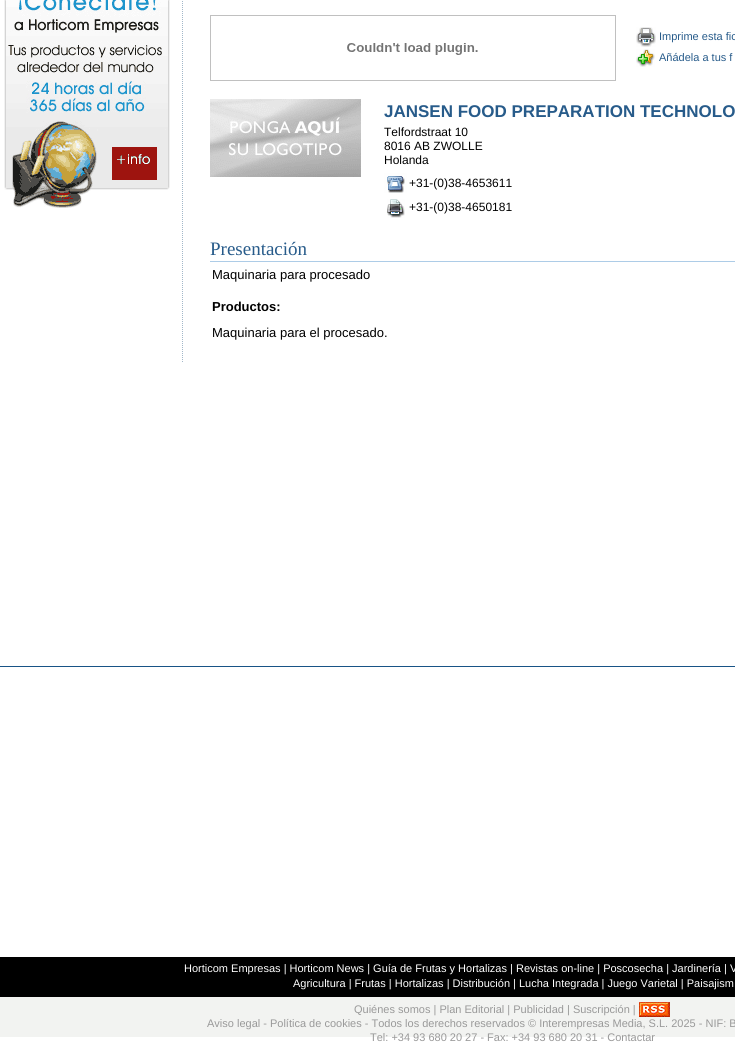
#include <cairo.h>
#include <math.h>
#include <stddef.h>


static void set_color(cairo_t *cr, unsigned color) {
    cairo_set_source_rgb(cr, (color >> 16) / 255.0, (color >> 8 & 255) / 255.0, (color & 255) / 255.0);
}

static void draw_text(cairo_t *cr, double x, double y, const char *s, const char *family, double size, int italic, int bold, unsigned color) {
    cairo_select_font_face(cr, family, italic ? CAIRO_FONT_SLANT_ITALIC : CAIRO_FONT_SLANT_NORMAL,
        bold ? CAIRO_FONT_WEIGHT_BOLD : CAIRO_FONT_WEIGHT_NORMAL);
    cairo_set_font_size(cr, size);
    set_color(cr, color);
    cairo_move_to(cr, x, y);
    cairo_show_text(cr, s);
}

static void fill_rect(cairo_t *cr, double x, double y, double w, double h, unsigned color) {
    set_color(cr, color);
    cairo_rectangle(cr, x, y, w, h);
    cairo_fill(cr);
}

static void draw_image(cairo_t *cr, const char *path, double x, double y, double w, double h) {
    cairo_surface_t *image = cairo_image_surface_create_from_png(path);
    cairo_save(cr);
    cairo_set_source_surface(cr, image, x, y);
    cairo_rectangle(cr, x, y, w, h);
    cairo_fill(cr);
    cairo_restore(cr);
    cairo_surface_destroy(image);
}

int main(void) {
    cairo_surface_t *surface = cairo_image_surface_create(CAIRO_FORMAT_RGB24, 735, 1049);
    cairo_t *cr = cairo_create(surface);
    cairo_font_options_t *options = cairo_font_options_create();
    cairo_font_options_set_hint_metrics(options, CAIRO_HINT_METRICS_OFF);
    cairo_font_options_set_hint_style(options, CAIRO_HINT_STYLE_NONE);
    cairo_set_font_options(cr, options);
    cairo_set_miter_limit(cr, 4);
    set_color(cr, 0xFFFFFF);
    cairo_paint(cr);
    draw_image(cr, "assets/img1.png", 4, 0, 166, 208);
    cairo_new_path(cr);
    cairo_move_to(cr, 182.5, -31);
    cairo_line_to(cr, 182.5, 363);
    set_color(cr, 0xA2B7C9);
    cairo_set_line_width(cr, 1);
    cairo_set_dash(cr, (double[]){1, 1}, 2, 0);
    cairo_stroke(cr);
    cairo_rectangle(cr, 210.5, 15.5, 405, 65);
    set_color(cr, 0xC0C0C0);
    cairo_set_dash(cr, NULL, 0, 0);
    cairo_stroke(cr);
    draw_image(cr, "assets/img2.png", 347, 43, 131, 12);
    draw_image(cr, "assets/img3.png", 636, 27, 20, 20);
    draw_text(cr, 659, 40, "Imprime esta fic", "Liberation Sans", 11, 0, 0, 0x275B8A);
    draw_image(cr, "assets/img4.png", 636, 49, 19, 18);
    draw_text(cr, 659, 61, "Añádela a tus f", "Liberation Sans", 11, 0, 0, 0x275B8A);
    draw_image(cr, "assets/img5.png", 210, 99, 151, 78);
    draw_text(cr, 384, 117, "JANSEN FOOD PREPARATION TECHNOLO", "Liberation Sans", 17, 0, 1, 0x275B8A);
    draw_text(cr, 384, 136, "Telfordstraat 10", "Liberation Sans", 12, 0, 0, 0x000000);
    draw_text(cr, 384, 150, "8016 AB ZWOLLE", "Liberation Sans", 12, 0, 0, 0x000000);
    draw_text(cr, 384, 164, "Holanda", "Liberation Sans", 12, 0, 0, 0x000000);
    draw_image(cr, "assets/img6.png", 384, 173, 23, 20);
    draw_text(cr, 409, 187, "+31-(0)38-4653611", "Liberation Sans", 12, 0, 0, 0x000000);
    draw_image(cr, "assets/img7.png", 387, 199, 18, 19);
    draw_text(cr, 409, 211, "+31-(0)38-4650181", "Liberation Sans", 12, 0, 0, 0x000000);
    fill_rect(cr, 210, 261, 525, 1, 0xADCCE7);
    draw_text(cr, 210, 255, "Presentación", "Liberation Serif", 19, 0, 0, 0x275B8A);
    draw_text(cr, 212, 279, "Maquinaria para procesado", "Liberation Sans", 13, 0, 0, 0x000000);
    draw_text(cr, 212, 311, "Productos:", "Liberation Sans", 13, 0, 1, 0x000000);
    draw_text(cr, 212, 337, "Maquinaria para el procesado.", "Liberation Sans", 13, 0, 0, 0x000000);
    fill_rect(cr, 0, 666, 735, 1, 0x185486);
    fill_rect(cr, 0, 957, 735, 40, 0x000000);
    draw_text(cr, 184, 972, "Horticom Empresas | Horticom News | Guía de Frutas y Hortalizas | Revistas on-line | Poscosecha | Jardinería | V", "Liberation Sans", 11, 0, 0, 0xFFFFFF);
    draw_text(cr, 293, 987, "Agricultura | Frutas | Hortalizas | Distribución | Lucha Integrada | Juego Varietal | Paisajism", "Liberation Sans", 11, 0, 0, 0xFFFFFF);
    fill_rect(cr, 0, 997, 735, 40, 0xF2F3F1);
    draw_text(cr, 354, 1013, "Quiénes somos | Plan Editorial | Publicidad | Suscripción |", "Liberation Sans", 11, 0, 0, 0x999999);
    draw_image(cr, "assets/img8.png", 639, 1002, 31, 15);
    draw_text(cr, 207, 1027, "Aviso legal - Política de cookies - Todos los derechos reservados © Interempresas Media, S.L. 2025 - NIF: B", "Liberation Sans", 11, 0, 0, 0x999999);
    draw_text(cr, 370, 1041, "Tel: +34 93 680 20 27 - Fax: +34 93 680 20 31 - Contactar", "Liberation Sans", 11, 0, 0, 0x999999);
    cairo_surface_write_to_png(surface, "output.png");
    cairo_font_options_destroy(options);
    cairo_destroy(cr);
    cairo_surface_destroy(surface);
    return 0;
}
